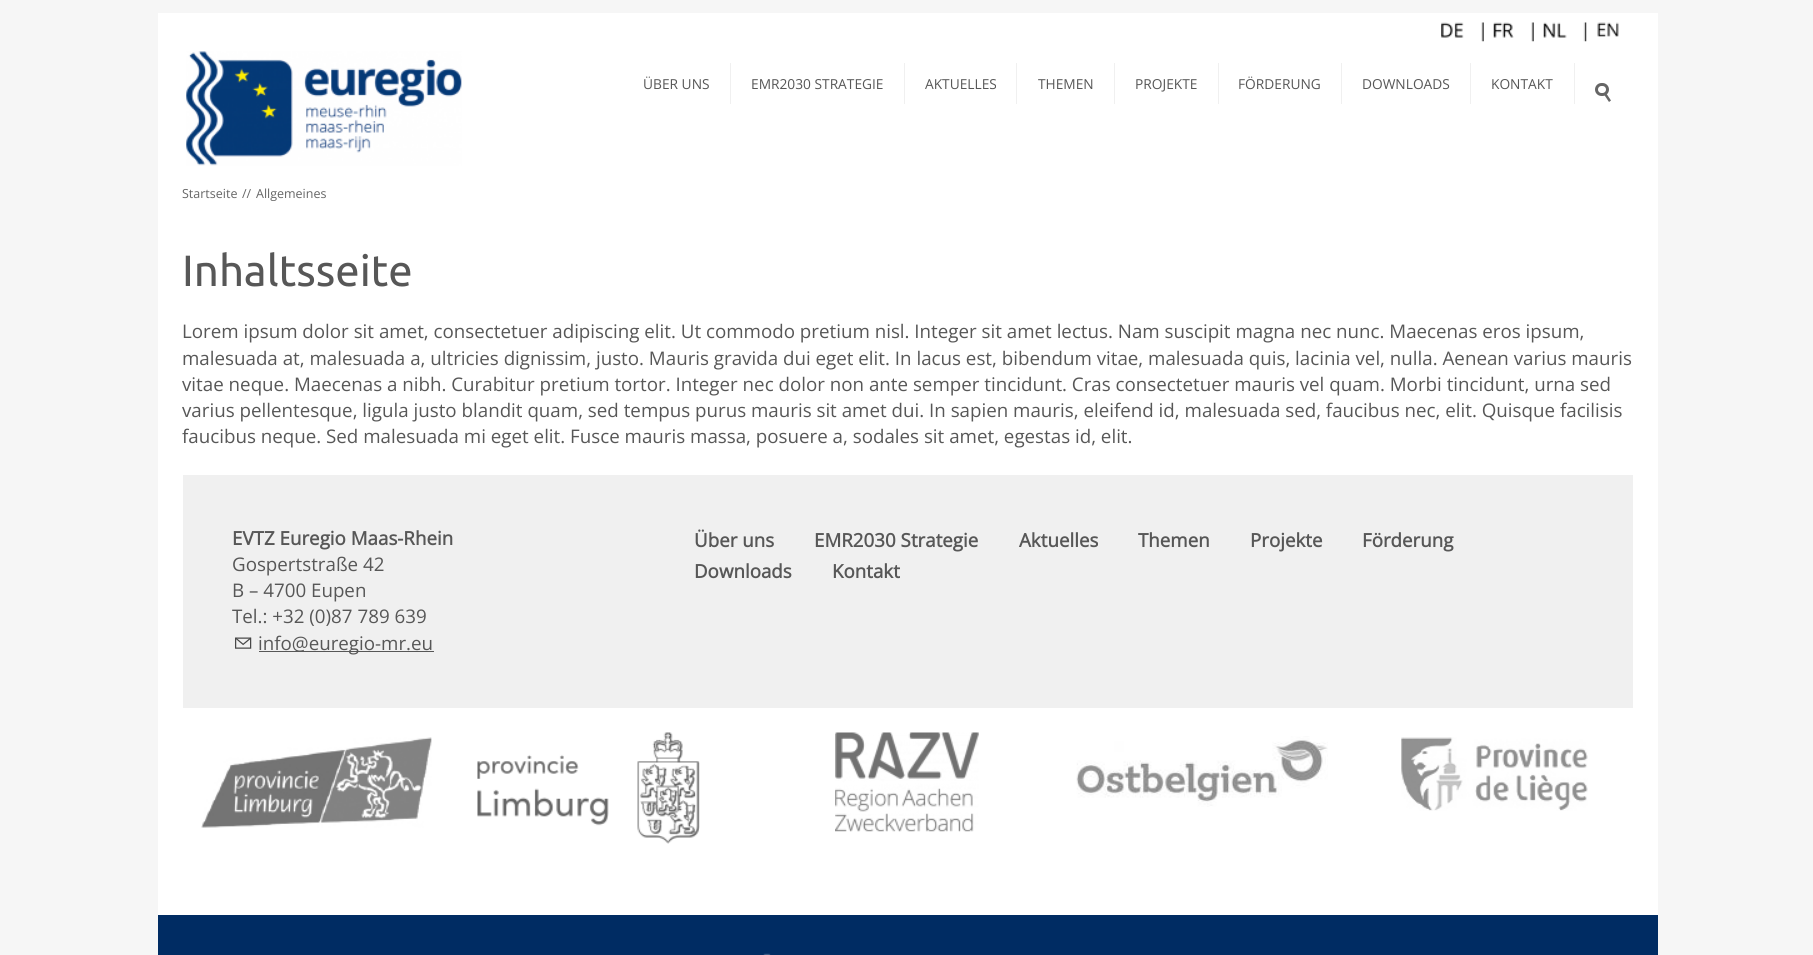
#include <cairo.h>
#include <math.h>
#include <stddef.h>


static void set_color(cairo_t *cr, unsigned color) {
    cairo_set_source_rgb(cr, (color >> 16) / 255.0, (color >> 8 & 255) / 255.0, (color & 255) / 255.0);
}

static void draw_text(cairo_t *cr, double x, double y, const char *s, const char *family, double size, int italic, int bold, unsigned color) {
    cairo_select_font_face(cr, family, italic ? CAIRO_FONT_SLANT_ITALIC : CAIRO_FONT_SLANT_NORMAL,
        bold ? CAIRO_FONT_WEIGHT_BOLD : CAIRO_FONT_WEIGHT_NORMAL);
    cairo_set_font_size(cr, size);
    set_color(cr, color);
    cairo_move_to(cr, x, y);
    cairo_show_text(cr, s);
}

static void fill_rect(cairo_t *cr, double x, double y, double w, double h, unsigned color) {
    set_color(cr, color);
    cairo_rectangle(cr, x, y, w, h);
    cairo_fill(cr);
}

static void rounded_rect(cairo_t *cr, double x, double y, double w, double h, double r) {
    cairo_new_sub_path(cr);
    cairo_arc(cr, x + w - r, y + h - r, r, 0, M_PI / 2);
    cairo_arc(cr, x + r, y + h - r, r, M_PI / 2, M_PI);
    cairo_arc(cr, x + r, y + r, r, M_PI, 1.5 * M_PI);
    cairo_arc(cr, x + w - r, y + r, r, 1.5 * M_PI, 2 * M_PI);
    cairo_close_path(cr);
}

static void draw_image(cairo_t *cr, const char *path, double x, double y, double w, double h) {
    cairo_surface_t *image = cairo_image_surface_create_from_png(path);
    cairo_save(cr);
    cairo_set_source_surface(cr, image, x, y);
    cairo_rectangle(cr, x, y, w, h);
    cairo_fill(cr);
    cairo_restore(cr);
    cairo_surface_destroy(image);
}

int main(void) {
    cairo_surface_t *surface = cairo_image_surface_create(CAIRO_FORMAT_RGB24, 1813, 955);
    cairo_t *cr = cairo_create(surface);
    cairo_font_options_t *options = cairo_font_options_create();
    cairo_font_options_set_hint_metrics(options, CAIRO_HINT_METRICS_OFF);
    cairo_font_options_set_hint_style(options, CAIRO_HINT_STYLE_NONE);
    cairo_set_font_options(cr, options);
    cairo_set_miter_limit(cr, 4);
    set_color(cr, 0xF6F6F6);
    cairo_paint(cr);
    fill_rect(cr, 158, 13, 1500, 902, 0xFFFFFF);
    draw_image(cr, "assets/img1.png", 1441, 22, 43, 20);
    draw_image(cr, "assets/img2.png", 1493, 22, 41, 20);
    draw_image(cr, "assets/img3.png", 1543, 22, 44, 20);
    draw_image(cr, "assets/img4.png", 1597, 22, 22, 15);
    draw_image(cr, "assets/img5.png", 186, 51, 276, 115);
    fill_rect(cr, 730, 63, 1, 41, 0xF0F0F0);
    draw_text(cr, 643, 89, "ÜBER UNS", "Open Sans", 13.75, 0, 0, 0x575757);
    fill_rect(cr, 904, 63, 1, 41, 0xF0F0F0);
    draw_text(cr, 751, 89, "EMR2030 STRATEGIE", "Open Sans", 13.75, 0, 0, 0x575757);
    fill_rect(cr, 1016, 63, 1, 41, 0xF0F0F0);
    draw_text(cr, 925, 89, "AKTUELLES", "Open Sans", 13.75, 0, 0, 0x575757);
    fill_rect(cr, 1114, 63, 1, 41, 0xF0F0F0);
    draw_text(cr, 1038, 89, "THEMEN", "Open Sans", 13.75, 0, 0, 0x575757);
    fill_rect(cr, 1218, 63, 1, 41, 0xF0F0F0);
    draw_text(cr, 1135, 89, "PROJEKTE", "Open Sans", 13.75, 0, 0, 0x575757);
    fill_rect(cr, 1341, 63, 1, 41, 0xF0F0F0);
    draw_text(cr, 1238, 89, "FÖRDERUNG", "Open Sans", 13.75, 0, 0, 0x575757);
    fill_rect(cr, 1470, 63, 1, 41, 0xF0F0F0);
    draw_text(cr, 1362, 89, "DOWNLOADS", "Open Sans", 13.75, 0, 0, 0x575757);
    fill_rect(cr, 1574, 63, 1, 41, 0xF0F0F0);
    draw_text(cr, 1491, 89, "KONTAKT", "Open Sans", 13.75, 0, 0, 0x575757);
    rounded_rect(cr, 1596.5, 84.5, 11, 10, 5);
    set_color(cr, 0x666666);
    cairo_set_line_width(cr, 3);
    cairo_stroke(cr);
    cairo_new_path(cr);
    cairo_move_to(cr, 1606, 93);
    cairo_line_to(cr, 1611, 100.5);
    cairo_line_to(cr, 1609, 102);
    cairo_line_to(cr, 1604, 94.5);
    cairo_close_path(cr);
    cairo_fill(cr);
    draw_text(cr, 182, 198, "Startseite", "Open Sans", 12.5, 0, 0, 0x666666);
    draw_text(cr, 242, 198, "//", "Open Sans", 12.5, 0, 0, 0x666666);
    draw_text(cr, 256, 198, "Allgemeines", "Open Sans", 12.5, 0, 0, 0x666666);
    draw_text(cr, 182, 286, "Inhaltsseite", "Ubuntu", 43.75, 0, 0, 0x575757);
    draw_text(cr, 182, 338, "Lorem ipsum dolor sit amet, consectetuer adipiscing elit. Ut commodo pretium nisl. Integer sit amet lectus. Nam suscipit magna nec nunc. Maecenas eros ipsum,", "Open Sans", 18.75, 0, 0, 0x575757);
    draw_text(cr, 182, 365, "malesuada at, malesuada a, ultricies dignissim, justo. Mauris gravida dui eget elit. In lacus est, bibendum vitae, malesuada quis, lacinia vel, nulla. Aenean varius mauris", "Open Sans", 18.75, 0, 0, 0x575757);
    draw_text(cr, 182, 391, "vitae neque. Maecenas a nibh. Curabitur pretium tortor. Integer nec dolor non ante semper tincidunt. Cras consectetuer mauris vel quam. Morbi tincidunt, urna sed", "Open Sans", 18.75, 0, 0, 0x575757);
    draw_text(cr, 182, 417, "varius pellentesque, ligula justo blandit quam, sed tempus purus mauris sit amet dui. In sapien mauris, eleifend id, malesuada sed, faucibus nec, elit. Quisque facilisis", "Open Sans", 18.75, 0, 0, 0x575757);
    draw_text(cr, 182, 443, "faucibus neque. Sed malesuada mi eget elit. Fusce mauris massa, posuere a, sodales sit amet, egestas id, elit.", "Open Sans", 18.75, 0, 0, 0x575757);
    fill_rect(cr, 183, 475, 1450, 233, 0xF0F0F0);
    draw_text(cr, 232, 545, "EVTZ Euregio Maas-Rhein", "Open Sans", 18.75, 0, 1, 0x575757);
    draw_text(cr, 232, 571, "Gospertstraße 42", "Open Sans", 18.75, 0, 0, 0x575757);
    draw_text(cr, 232, 597, "B – 4700 Eupen", "Open Sans", 18.75, 0, 0, 0x575757);
    draw_text(cr, 232, 623, "Tel.: +32 (0)87 789 639", "Open Sans", 18.75, 0, 0, 0x575757);
    draw_image(cr, "assets/img6.png", 235, 637, 17, 12);
    fill_rect(cr, 259, 651, 147, 1, 0x575757);
    draw_text(cr, 258, 650, "info@euregio-mr.eu", "Open Sans", 18.75, 0, 0, 0x575757);
    fill_rect(cr, 406, 651, 28, 1, 0x575757);
    draw_text(cr, 694, 547, "Über uns", "Open Sans", 18.75, 0, 1, 0x575757);
    draw_text(cr, 814, 547, "EMR2030 Strategie", "Open Sans", 18.75, 0, 1, 0x575757);
    draw_text(cr, 1019, 547, "Aktuelles", "Open Sans", 18.75, 0, 1, 0x575757);
    draw_text(cr, 1138, 547, "Themen", "Open Sans", 18.75, 0, 1, 0x575757);
    draw_text(cr, 1250, 547, "Projekte", "Open Sans", 18.75, 0, 1, 0x575757);
    draw_text(cr, 1362, 547, "Förderung", "Open Sans", 18.75, 0, 1, 0x575757);
    draw_text(cr, 694, 578, "Downloads", "Open Sans", 18.75, 0, 1, 0x575757);
    draw_text(cr, 832, 578, "Kontakt", "Open Sans", 18.75, 0, 1, 0x575757);
    draw_image(cr, "assets/img7.png", 201, 737, 231, 91);
    draw_image(cr, "assets/img8.png", 477, 732, 223, 112);
    draw_image(cr, "assets/img9.png", 835, 732, 144, 100);
    draw_image(cr, "assets/img10.png", 1076, 736, 252, 71);
    draw_image(cr, "assets/img11.png", 1401, 737, 187, 74);
    fill_rect(cr, 158, 915, 1500, 40, 0x002C63);
    draw_image(cr, "assets/img12.png", 763, 953, 8, 2);
    cairo_surface_write_to_png(surface, "output.png");
    cairo_font_options_destroy(options);
    cairo_destroy(cr);
    cairo_surface_destroy(surface);
    return 0;
}
